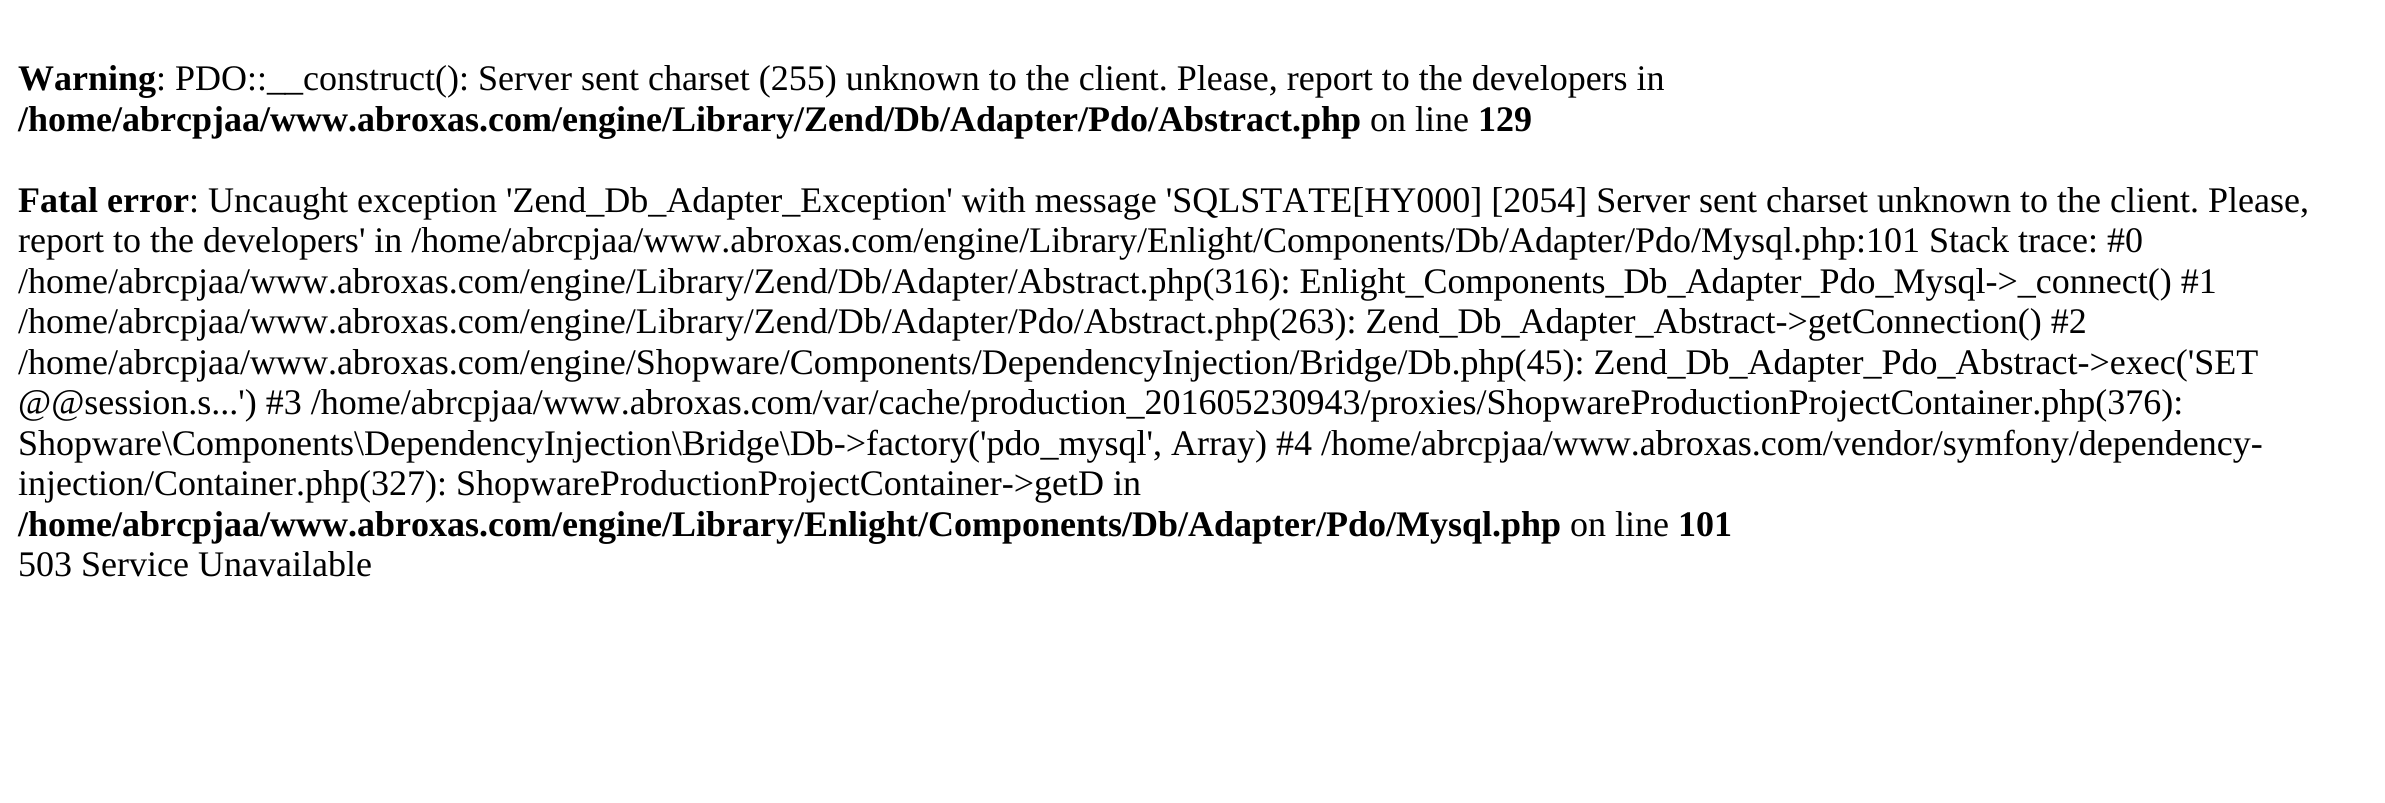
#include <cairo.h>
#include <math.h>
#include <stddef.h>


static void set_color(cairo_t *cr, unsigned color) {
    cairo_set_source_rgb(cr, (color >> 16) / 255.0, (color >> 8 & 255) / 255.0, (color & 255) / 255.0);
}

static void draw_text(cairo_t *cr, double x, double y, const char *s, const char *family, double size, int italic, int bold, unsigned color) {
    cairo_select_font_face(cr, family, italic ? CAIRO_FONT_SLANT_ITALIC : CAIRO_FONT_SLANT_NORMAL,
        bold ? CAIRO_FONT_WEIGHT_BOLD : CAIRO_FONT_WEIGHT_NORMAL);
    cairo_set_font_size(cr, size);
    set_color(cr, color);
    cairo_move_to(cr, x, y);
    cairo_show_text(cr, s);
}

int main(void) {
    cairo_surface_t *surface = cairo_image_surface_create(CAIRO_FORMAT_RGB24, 2385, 803);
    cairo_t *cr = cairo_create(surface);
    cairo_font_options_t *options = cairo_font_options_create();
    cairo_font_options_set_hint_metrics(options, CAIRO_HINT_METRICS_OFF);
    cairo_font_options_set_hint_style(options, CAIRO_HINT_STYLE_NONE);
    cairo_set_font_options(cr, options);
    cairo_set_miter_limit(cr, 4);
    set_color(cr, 0xFFFFFF);
    cairo_paint(cr);
    draw_text(cr, 18, 90, "Warning", "Liberation Serif", 36, 0, 1, 0x000000);
    draw_text(cr, 156, 90, ": PDO::__construct(): Server sent charset (255) unknown to the client. Please, report to the developers in", "Liberation Serif", 36, 0, 0, 0x000000);
    draw_text(cr, 18, 131, "/home/abrcpjaa/www.abroxas.com/engine/Library/Zend/Db/Adapter/Pdo/Abstract.php", "Liberation Serif", 36, 0, 1, 0x000000);
    draw_text(cr, 1370, 131, "on line", "Liberation Serif", 36, 0, 0, 0x000000);
    draw_text(cr, 1478, 131, "129", "Liberation Serif", 36, 0, 1, 0x000000);
    draw_text(cr, 18, 212, "Fatal error", "Liberation Serif", 36, 0, 1, 0x000000);
    draw_text(cr, 189, 212, ": Uncaught exception 'Zend_Db_Adapter_Exception' with message 'SQLSTATE[HY000] [2054] Server sent charset unknown to the client. Please,", "Liberation Serif", 36, 0, 0, 0x000000);
    draw_text(cr, 18, 252, "report to the developers' in /home/abrcpjaa/www.abroxas.com/engine/Library/Enlight/Components/Db/Adapter/Pdo/Mysql.php:101 Stack trace: #0", "Liberation Serif", 36, 0, 0, 0x000000);
    draw_text(cr, 18, 293, "/home/abrcpjaa/www.abroxas.com/engine/Library/Zend/Db/Adapter/Abstract.php(316): Enlight_Components_Db_Adapter_Pdo_Mysql->_connect() #1", "Liberation Serif", 36, 0, 0, 0x000000);
    draw_text(cr, 18, 333, "/home/abrcpjaa/www.abroxas.com/engine/Library/Zend/Db/Adapter/Pdo/Abstract.php(263): Zend_Db_Adapter_Abstract->getConnection() #2", "Liberation Serif", 36, 0, 0, 0x000000);
    draw_text(cr, 18, 374, "/home/abrcpjaa/www.abroxas.com/engine/Shopware/Components/DependencyInjection/Bridge/Db.php(45): Zend_Db_Adapter_Pdo_Abstract->exec('SET", "Liberation Serif", 36, 0, 0, 0x000000);
    draw_text(cr, 18, 414, "@@session.s...') #3 /home/abrcpjaa/www.abroxas.com/var/cache/production_201605230943/proxies/ShopwareProductionProjectContainer.php(376):", "Liberation Serif", 36, 0, 0, 0x000000);
    draw_text(cr, 18, 455, "Shopware\\Components\\DependencyInjection\\Bridge\\Db->factory('pdo_mysql', Array) #4 /home/abrcpjaa/www.abroxas.com/vendor/symfony/dependency-", "Liberation Serif", 36, 0, 0, 0x000000);
    draw_text(cr, 18, 495, "injection/Container.php(327): ShopwareProductionProjectContainer->getD in", "Liberation Serif", 36, 0, 0, 0x000000);
    draw_text(cr, 18, 536, "/home/abrcpjaa/www.abroxas.com/engine/Library/Enlight/Components/Db/Adapter/Pdo/Mysql.php", "Liberation Serif", 36, 0, 1, 0x000000);
    draw_text(cr, 1570, 536, "on line", "Liberation Serif", 36, 0, 0, 0x000000);
    draw_text(cr, 1678, 536, "101", "Liberation Serif", 36, 0, 1, 0x000000);
    draw_text(cr, 18, 576, "503 Service Unavailable", "Liberation Serif", 36, 0, 0, 0x000000);
    cairo_surface_write_to_png(surface, "output.png");
    cairo_font_options_destroy(options);
    cairo_destroy(cr);
    cairo_surface_destroy(surface);
    return 0;
}
